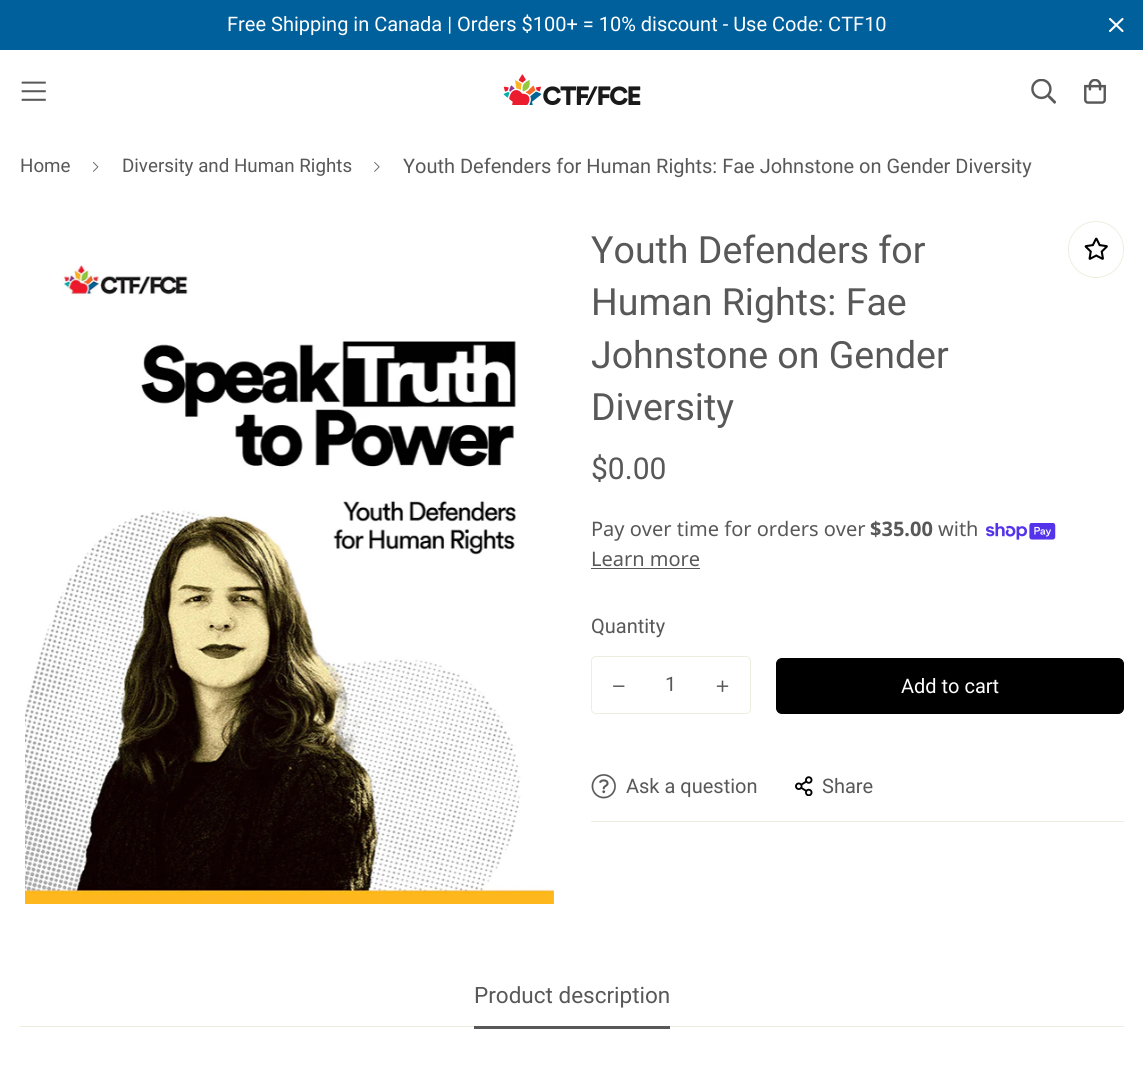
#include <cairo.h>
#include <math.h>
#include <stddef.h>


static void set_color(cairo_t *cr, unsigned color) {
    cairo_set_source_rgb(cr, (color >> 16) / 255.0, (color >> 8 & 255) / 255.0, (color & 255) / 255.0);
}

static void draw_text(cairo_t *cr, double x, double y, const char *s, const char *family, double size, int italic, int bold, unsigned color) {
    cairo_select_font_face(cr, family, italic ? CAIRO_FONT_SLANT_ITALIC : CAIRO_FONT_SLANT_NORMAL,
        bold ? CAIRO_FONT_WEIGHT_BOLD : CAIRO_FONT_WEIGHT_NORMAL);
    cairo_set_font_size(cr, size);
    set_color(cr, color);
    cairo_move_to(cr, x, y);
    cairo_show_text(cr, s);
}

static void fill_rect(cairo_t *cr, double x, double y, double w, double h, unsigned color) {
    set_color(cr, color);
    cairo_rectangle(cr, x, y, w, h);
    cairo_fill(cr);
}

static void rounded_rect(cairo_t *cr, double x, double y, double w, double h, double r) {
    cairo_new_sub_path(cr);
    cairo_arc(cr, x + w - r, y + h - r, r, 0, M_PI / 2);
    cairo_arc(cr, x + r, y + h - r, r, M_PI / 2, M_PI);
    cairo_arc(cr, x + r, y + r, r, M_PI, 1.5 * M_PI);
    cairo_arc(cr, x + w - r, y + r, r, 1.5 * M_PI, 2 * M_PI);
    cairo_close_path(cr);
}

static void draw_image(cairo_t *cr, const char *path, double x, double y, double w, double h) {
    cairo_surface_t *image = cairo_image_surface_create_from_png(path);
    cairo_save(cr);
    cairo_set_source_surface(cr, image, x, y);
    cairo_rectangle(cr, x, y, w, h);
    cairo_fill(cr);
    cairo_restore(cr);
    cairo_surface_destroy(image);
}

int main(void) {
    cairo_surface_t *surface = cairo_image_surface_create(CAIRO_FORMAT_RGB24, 1143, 1091);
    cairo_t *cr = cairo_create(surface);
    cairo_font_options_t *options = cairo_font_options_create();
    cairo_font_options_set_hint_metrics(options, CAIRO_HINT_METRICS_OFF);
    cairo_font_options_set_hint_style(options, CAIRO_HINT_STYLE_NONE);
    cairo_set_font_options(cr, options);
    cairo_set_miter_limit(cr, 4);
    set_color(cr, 0xFFFFFF);
    cairo_paint(cr);
    fill_rect(cr, 0, 0, 1143, 50, 0x00609C);
    draw_text(cr, 227, 31, "Free Shipping in Canada | Orders $100+ = 10% discount - Use Code: CTF10", "Roboto", 20, 0, 0, 0xFFFFFF);
    cairo_new_path(cr);
    cairo_move_to(cr, 1110, 31);
    cairo_line_to(cr, 1122.5, 19);
    cairo_move_to(cr, 1110, 19);
    cairo_line_to(cr, 1122.5, 31);
    cairo_set_line_width(cr, 2.1);
    cairo_set_line_cap(cr, CAIRO_LINE_CAP_ROUND);
    cairo_set_line_join(cr, CAIRO_LINE_JOIN_ROUND);
    cairo_stroke(cr);
    draw_image(cr, "assets/img1.png", 21, 81, 25, 20);
    draw_image(cr, "assets/img2.png", 503, 74, 138, 31);
    draw_image(cr, "assets/img3.png", 1031, 79, 25, 25);
    draw_image(cr, "assets/img4.png", 1084, 79, 22, 25);
    draw_text(cr, 20, 172, "Home", "Roboto", 18.75, 0, 0, 0x585858);
    draw_image(cr, "assets/img5.png", 93, 162, 6, 10);
    draw_text(cr, 122, 172, "Diversity and Human Rights", "Roboto", 18.75, 0, 0, 0x585858);
    draw_image(cr, "assets/img6.png", 374, 162, 6, 10);
    draw_text(cr, 403, 173, "Youth Defenders for Human Rights: Fae Johnstone on Gender Diversity", "Roboto", 20, 0, 0, 0x585858);
    draw_image(cr, "assets/img7.png", 25, 264, 529, 640);
    draw_text(cr, 591, 263, "Youth Defenders for", "Roboto", 37.5, 0, 0, 0x585858);
    draw_text(cr, 591, 315, "Human Rights: Fae", "Roboto", 37.5, 0, 0, 0x585858);
    draw_text(cr, 591, 368, "Johnstone on Gender", "Roboto", 37.5, 0, 0, 0x585858);
    draw_text(cr, 591, 420, "Diversity", "Roboto", 37.5, 0, 0, 0x585858);
    rounded_rect(cr, 1068.5, 221.5, 55, 56, 27.5);
    set_color(cr, 0xEEEEE0);
    cairo_set_line_width(cr, 1);
    cairo_set_line_cap(cr, CAIRO_LINE_CAP_BUTT);
    cairo_set_line_join(cr, CAIRO_LINE_JOIN_MITER);
    cairo_stroke(cr);
    draw_image(cr, "assets/img8.png", 1084, 237, 24, 23);
    draw_text(cr, 591, 479, "$0.00", "Roboto", 30, 0, 0, 0x585858);
    draw_text(cr, 591, 536, "Pay over time for orders over", "Noto Sans", 20, 0, 0, 0x585858);
    draw_text(cr, 870, 536, "$35.00", "Noto Sans", 20, 0, 1, 0x585858);
    draw_text(cr, 938, 536, "with", "Noto Sans", 20, 0, 0, 0x585858);
    draw_image(cr, "assets/img9.png", 986, 523, 70, 17);
    draw_text(cr, 591, 566, "Learn more", "Noto Sans", 20, 0, 0, 0x585858);
    fill_rect(cr, 591, 568, 109, 1, 0x585858);
    draw_text(cr, 591, 633, "Quantity", "Roboto", 20, 0, 0, 0x585858);
    rounded_rect(cr, 591.5, 656.5, 159, 57, 4.5);
    set_color(cr, 0xEEEEE0);
    cairo_stroke(cr);
    draw_image(cr, "assets/img10.png", 613, 685, 12, 2);
    draw_text(cr, 665, 691, "1", "Roboto", 20, 0, 0, 0x585858);
    draw_image(cr, "assets/img11.png", 716, 680, 13, 12);
    set_color(cr, 0x000000);
    rounded_rect(cr, 776.5, 658.5, 347, 55, 5.5);
    cairo_fill_preserve(cr);
    cairo_stroke(cr);
    draw_text(cr, 901, 693, "Add to cart", "Roboto", 20, 0, 0, 0xFFFFFF);
    fill_rect(cr, 591, 821, 533, 1, 0xEEEEE0);
    draw_image(cr, "assets/img12.png", 591, 774, 25, 25);
    draw_text(cr, 626, 793, "Ask a question", "Roboto", 20, 0, 0, 0x585858);
    draw_image(cr, "assets/img13.png", 795, 776, 18, 20);
    draw_text(cr, 822, 793, "Share", "Roboto", 20, 0, 0, 0x585858);
    fill_rect(cr, 20, 1026, 1104, 1, 0xEEEEE0);
    draw_text(cr, 474, 1003, "Product description", "Roboto", 22.5, 0, 0, 0x585858);
    fill_rect(cr, 474, 1026, 196, 3, 0x585858);
    cairo_surface_write_to_png(surface, "output.png");
    cairo_font_options_destroy(options);
    cairo_destroy(cr);
    cairo_surface_destroy(surface);
    return 0;
}
